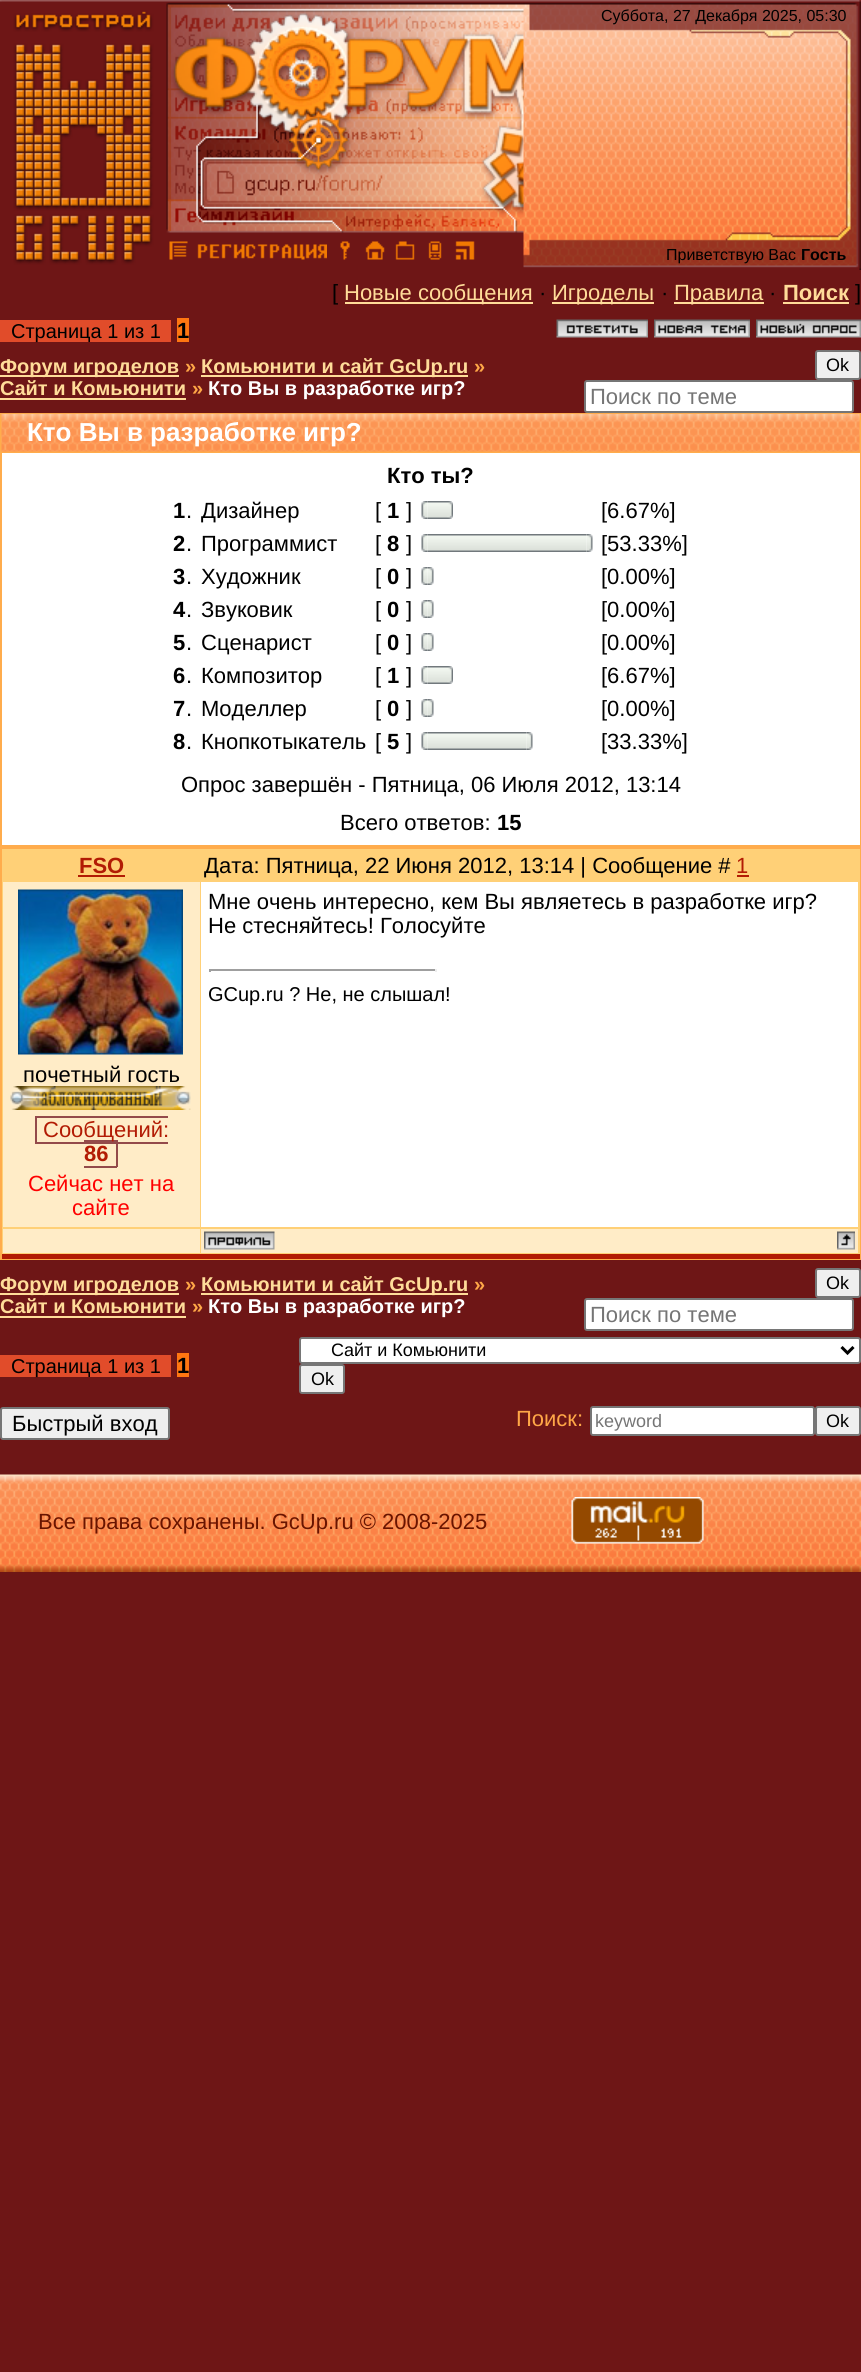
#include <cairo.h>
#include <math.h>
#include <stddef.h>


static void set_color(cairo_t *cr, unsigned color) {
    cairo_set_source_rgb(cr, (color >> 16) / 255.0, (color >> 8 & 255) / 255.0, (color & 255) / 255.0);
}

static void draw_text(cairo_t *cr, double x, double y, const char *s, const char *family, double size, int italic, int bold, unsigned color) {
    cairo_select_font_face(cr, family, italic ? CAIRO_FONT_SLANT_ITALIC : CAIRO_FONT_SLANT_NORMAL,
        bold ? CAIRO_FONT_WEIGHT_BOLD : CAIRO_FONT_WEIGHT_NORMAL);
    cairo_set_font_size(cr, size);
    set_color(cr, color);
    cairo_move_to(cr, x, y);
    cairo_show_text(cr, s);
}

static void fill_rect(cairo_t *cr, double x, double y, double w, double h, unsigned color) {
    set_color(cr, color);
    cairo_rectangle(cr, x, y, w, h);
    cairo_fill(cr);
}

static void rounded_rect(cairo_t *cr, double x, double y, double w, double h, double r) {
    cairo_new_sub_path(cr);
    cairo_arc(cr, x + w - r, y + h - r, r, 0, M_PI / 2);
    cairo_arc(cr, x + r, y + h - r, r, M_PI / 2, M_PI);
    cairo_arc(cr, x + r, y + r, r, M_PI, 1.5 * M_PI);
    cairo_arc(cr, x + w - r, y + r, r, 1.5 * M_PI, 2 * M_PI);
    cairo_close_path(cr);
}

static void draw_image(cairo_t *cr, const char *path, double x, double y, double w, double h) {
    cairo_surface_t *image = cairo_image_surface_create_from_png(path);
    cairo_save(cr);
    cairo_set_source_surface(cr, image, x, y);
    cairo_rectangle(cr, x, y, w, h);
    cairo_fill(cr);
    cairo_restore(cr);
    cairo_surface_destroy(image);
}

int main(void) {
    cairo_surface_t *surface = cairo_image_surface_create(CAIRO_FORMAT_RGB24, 861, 2372);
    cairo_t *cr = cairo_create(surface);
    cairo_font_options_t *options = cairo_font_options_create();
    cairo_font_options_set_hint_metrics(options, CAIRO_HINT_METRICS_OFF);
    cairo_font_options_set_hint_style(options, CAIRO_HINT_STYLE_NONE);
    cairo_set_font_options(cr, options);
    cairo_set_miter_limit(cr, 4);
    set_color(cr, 0x6E1616);
    cairo_paint(cr);
    draw_image(cr, "assets/img1.png", 523, 0, 324, 268);
    draw_image(cr, "assets/img2.png", 0, 0, 524, 268);
    draw_image(cr, "assets/img3.png", 169, 241, 19, 19);
    draw_image(cr, "assets/img4.png", 197, 244, 130, 16);
    draw_image(cr, "assets/img5.png", 340, 241, 10, 19);
    draw_image(cr, "assets/img6.png", 365, 241, 20, 19);
    draw_image(cr, "assets/img7.png", 395, 241, 20, 19);
    draw_image(cr, "assets/img8.png", 428, 241, 14, 19);
    draw_image(cr, "assets/img9.png", 455, 241, 20, 19);
    draw_image(cr, "assets/img10.png", 529, 0, 332, 270);
    draw_text(cr, 601, 21, "Суббота, 27 Декабря 2025, 05:30", "Liberation Sans", 16, 0, 0, 0x000000);
    draw_text(cr, 666, 260, "Приветствую Вас", "Liberation Sans", 16, 0, 0, 0x000000);
    draw_text(cr, 801, 260, "Гость", "Liberation Sans", 16, 0, 1, 0x000000);
    draw_text(cr, 332, 300, "[", "Liberation Sans", 22, 0, 0, 0x000000);
    fill_rect(cr, 345, 302, 188, 2, 0xFFDC99);
    draw_text(cr, 344, 300, "Новые сообщения", "Liberation Sans", 22, 0, 0, 0xFFDC99);
    draw_text(cr, 539, 300, "·", "Liberation Sans", 22, 0, 0, 0x000000);
    fill_rect(cr, 552, 302, 102, 2, 0xFFDC99);
    draw_text(cr, 552, 300, "Игроделы", "Liberation Sans", 22, 0, 0, 0xFFDC99);
    draw_text(cr, 661, 300, "·", "Liberation Sans", 22, 0, 0, 0x000000);
    fill_rect(cr, 674, 302, 90, 2, 0xFFDC99);
    draw_text(cr, 674, 300, "Правила", "Liberation Sans", 22, 0, 0, 0xFFDC99);
    draw_text(cr, 769, 300, "·", "Liberation Sans", 22, 0, 0, 0x000000);
    draw_text(cr, 783, 300, "Поиск", "Liberation Sans", 22, 0, 1, 0xFFDC99);
    fill_rect(cr, 783, 302, 66, 2, 0xFFDC99);
    draw_text(cr, 855, 300, "]", "Liberation Sans", 22, 0, 0, 0x000000);
    fill_rect(cr, 0, 320, 171, 22, 0xE14C2A);
    draw_text(cr, 11, 338, "Страница 1 из 1", "Liberation Sans", 20, 0, 0, 0x000000);
    fill_rect(cr, 177, 318, 12, 24, 0xFF7611);
    draw_text(cr, 177, 338, "1", "Liberation Sans", 22, 0, 1, 0x000000);
    draw_image(cr, "assets/img11.png", 556, 319, 92, 19);
    draw_image(cr, "assets/img12.png", 654, 319, 96, 19);
    draw_image(cr, "assets/img13.png", 756, 319, 105, 19);
    fill_rect(cr, 0, 375, 179, 2, 0xFFDC99);
    draw_text(cr, 0, 373, "Форум игроделов", "Liberation Sans", 20, 0, 1, 0xFFDC99);
    draw_text(cr, 185, 373, "»", "Liberation Sans", 20, 0, 1, 0xFFA747);
    fill_rect(cr, 201, 375, 267, 2, 0xFFDC99);
    draw_text(cr, 201, 373, "Комьюнити и сайт GcUp.ru", "Liberation Sans", 20, 0, 1, 0xFFDC99);
    draw_text(cr, 474, 373, "»", "Liberation Sans", 20, 0, 1, 0xFFA747);
    draw_text(cr, 0, 395, "Сайт и Комьюнити", "Liberation Sans", 20, 0, 1, 0xFFDC99);
    fill_rect(cr, 0, 398, 186, 2, 0xFFDC99);
    draw_text(cr, 192, 395, "»", "Liberation Sans", 20, 0, 1, 0xFFA747);
    draw_text(cr, 208, 395, "Кто Вы в разработке игр?", "Liberation Sans", 20, 0, 1, 0xFFFFFF);
    set_color(cr, 0xEFEFEF);
    rounded_rect(cr, 816, 351, 44, 28, 2);
    cairo_fill_preserve(cr);
    set_color(cr, 0x767676);
    cairo_stroke(cr);
    draw_text(cr, 826, 371, "Ok", "Liberation Sans", 18, 0, 0, 0x000000);
    set_color(cr, 0xFFFFFF);
    rounded_rect(cr, 585, 381, 268, 31, 2);
    cairo_fill_preserve(cr);
    set_color(cr, 0x767676);
    cairo_stroke(cr);
    draw_text(cr, 590, 404, "Поиск по теме", "Liberation Sans", 22, 0, 0, 0x757575);
    fill_rect(cr, 0, 413, 861, 847, 0xFFAC4C);
    draw_image(cr, "assets/img14.png", 1, 414, 859, 38);
    draw_text(cr, 27, 441, "Кто Вы в разработке игр?", "Liberation Sans", 26, 0, 1, 0xFFFFFF);
    fill_rect(cr, 2, 453, 858, 392, 0xFFFFFF);
    draw_text(cr, 387, 483, "Кто ты?", "Liberation Sans", 22, 0, 1, 0x000000);
    draw_text(cr, 173, 518, "1", "Liberation Sans", 22, 0, 1, 0x000000);
    draw_text(cr, 186, 518, ".", "Liberation Sans", 22, 0, 0, 0x000000);
    draw_text(cr, 201, 518, "Дизайнер", "Liberation Sans", 22, 0, 0, 0x000000);
    draw_text(cr, 375, 518, "[", "Liberation Sans", 22, 0, 0, 0x000000);
    draw_text(cr, 387, 518, "1", "Liberation Sans", 22, 0, 1, 0x000000);
    draw_text(cr, 406, 518, "]", "Liberation Sans", 22, 0, 0, 0x000000);
    draw_image(cr, "assets/img15.png", 421, 501, 7, 18);
    draw_image(cr, "assets/img16.png", 427, 501, 20, 18);
    draw_image(cr, "assets/img17.png", 447, 501, 6, 18);
    draw_text(cr, 601, 518, "[6.67%]", "Liberation Sans", 22, 0, 0, 0x000000);
    draw_text(cr, 173, 551, "2", "Liberation Sans", 22, 0, 1, 0x000000);
    draw_text(cr, 186, 551, ".", "Liberation Sans", 22, 0, 0, 0x000000);
    draw_text(cr, 201, 551, "Программист", "Liberation Sans", 22, 0, 0, 0x000000);
    draw_text(cr, 375, 551, "[", "Liberation Sans", 22, 0, 0, 0x000000);
    draw_text(cr, 387, 551, "8", "Liberation Sans", 22, 0, 1, 0x000000);
    draw_text(cr, 406, 551, "]", "Liberation Sans", 22, 0, 0, 0x000000);
    draw_image(cr, "assets/img15.png", 421, 534, 7, 18);
    draw_image(cr, "assets/img18.png", 427, 534, 160, 18);
    draw_image(cr, "assets/img19.png", 586, 534, 7, 18);
    draw_text(cr, 601, 551, "[53.33%]", "Liberation Sans", 22, 0, 0, 0x000000);
    draw_text(cr, 173, 584, "3", "Liberation Sans", 22, 0, 1, 0x000000);
    draw_text(cr, 186, 584, ".", "Liberation Sans", 22, 0, 0, 0x000000);
    draw_text(cr, 201, 584, "Художник", "Liberation Sans", 22, 0, 0, 0x000000);
    draw_text(cr, 375, 584, "[", "Liberation Sans", 22, 0, 0, 0x000000);
    draw_text(cr, 387, 584, "0", "Liberation Sans", 22, 0, 1, 0x000000);
    draw_text(cr, 406, 584, "]", "Liberation Sans", 22, 0, 0, 0x000000);
    draw_image(cr, "assets/img15.png", 421, 567, 7, 18);
    draw_image(cr, "assets/img20.png", 427, 567, 7, 18);
    draw_text(cr, 601, 584, "[0.00%]", "Liberation Sans", 22, 0, 0, 0x000000);
    draw_text(cr, 173, 617, "4", "Liberation Sans", 22, 0, 1, 0x000000);
    draw_text(cr, 186, 617, ".", "Liberation Sans", 22, 0, 0, 0x000000);
    draw_text(cr, 201, 617, "Звуковик", "Liberation Sans", 22, 0, 0, 0x000000);
    draw_text(cr, 375, 617, "[", "Liberation Sans", 22, 0, 0, 0x000000);
    draw_text(cr, 387, 617, "0", "Liberation Sans", 22, 0, 1, 0x000000);
    draw_text(cr, 406, 617, "]", "Liberation Sans", 22, 0, 0, 0x000000);
    draw_image(cr, "assets/img15.png", 421, 600, 7, 18);
    draw_image(cr, "assets/img20.png", 427, 600, 7, 18);
    draw_text(cr, 601, 617, "[0.00%]", "Liberation Sans", 22, 0, 0, 0x000000);
    draw_text(cr, 173, 650, "5", "Liberation Sans", 22, 0, 1, 0x000000);
    draw_text(cr, 186, 650, ".", "Liberation Sans", 22, 0, 0, 0x000000);
    draw_text(cr, 201, 650, "Сценарист", "Liberation Sans", 22, 0, 0, 0x000000);
    draw_text(cr, 375, 650, "[", "Liberation Sans", 22, 0, 0, 0x000000);
    draw_text(cr, 387, 650, "0", "Liberation Sans", 22, 0, 1, 0x000000);
    draw_text(cr, 406, 650, "]", "Liberation Sans", 22, 0, 0, 0x000000);
    draw_image(cr, "assets/img15.png", 421, 633, 7, 18);
    draw_image(cr, "assets/img20.png", 427, 633, 7, 18);
    draw_text(cr, 601, 650, "[0.00%]", "Liberation Sans", 22, 0, 0, 0x000000);
    draw_text(cr, 173, 683, "6", "Liberation Sans", 22, 0, 1, 0x000000);
    draw_text(cr, 186, 683, ".", "Liberation Sans", 22, 0, 0, 0x000000);
    draw_text(cr, 201, 683, "Композитор", "Liberation Sans", 22, 0, 0, 0x000000);
    draw_text(cr, 375, 683, "[", "Liberation Sans", 22, 0, 0, 0x000000);
    draw_text(cr, 387, 683, "1", "Liberation Sans", 22, 0, 1, 0x000000);
    draw_text(cr, 406, 683, "]", "Liberation Sans", 22, 0, 0, 0x000000);
    draw_image(cr, "assets/img15.png", 421, 666, 7, 18);
    draw_image(cr, "assets/img16.png", 427, 666, 20, 18);
    draw_image(cr, "assets/img17.png", 447, 666, 6, 18);
    draw_text(cr, 601, 683, "[6.67%]", "Liberation Sans", 22, 0, 0, 0x000000);
    draw_text(cr, 173, 716, "7", "Liberation Sans", 22, 0, 1, 0x000000);
    draw_text(cr, 186, 716, ".", "Liberation Sans", 22, 0, 0, 0x000000);
    draw_text(cr, 201, 716, "Моделлер", "Liberation Sans", 22, 0, 0, 0x000000);
    draw_text(cr, 375, 716, "[", "Liberation Sans", 22, 0, 0, 0x000000);
    draw_text(cr, 387, 716, "0", "Liberation Sans", 22, 0, 1, 0x000000);
    draw_text(cr, 406, 716, "]", "Liberation Sans", 22, 0, 0, 0x000000);
    draw_image(cr, "assets/img15.png", 421, 699, 7, 18);
    draw_image(cr, "assets/img20.png", 427, 699, 7, 18);
    draw_text(cr, 601, 716, "[0.00%]", "Liberation Sans", 22, 0, 0, 0x000000);
    draw_text(cr, 173, 749, "8", "Liberation Sans", 22, 0, 1, 0x000000);
    draw_text(cr, 186, 749, ".", "Liberation Sans", 22, 0, 0, 0x000000);
    draw_text(cr, 201, 749, "Кнопкотыкатель", "Liberation Sans", 22, 0, 0, 0x000000);
    draw_text(cr, 375, 749, "[", "Liberation Sans", 22, 0, 0, 0x000000);
    draw_text(cr, 387, 749, "5", "Liberation Sans", 22, 0, 1, 0x000000);
    draw_text(cr, 406, 749, "]", "Liberation Sans", 22, 0, 0, 0x000000);
    draw_image(cr, "assets/img15.png", 421, 732, 7, 18);
    draw_image(cr, "assets/img21.png", 427, 732, 100, 18);
    draw_image(cr, "assets/img19.png", 526, 732, 7, 18);
    draw_text(cr, 601, 749, "[33.33%]", "Liberation Sans", 22, 0, 0, 0x000000);
    draw_text(cr, 181, 792, "Опрос завершён - Пятница, 06 Июля 2012, 13:14", "Liberation Sans", 22, 0, 0, 0x000000);
    draw_text(cr, 340, 830, "Всего ответов:", "Liberation Sans", 22, 0, 0, 0x000000);
    draw_text(cr, 497, 830, "15", "Liberation Sans", 22, 0, 1, 0x000000);
    fill_rect(cr, 2, 1254, 858, 5, 0xB21B04);
    fill_rect(cr, 2, 849, 858, 405, 0xFFD077);
    draw_text(cr, 79, 873, "FSO", "Liberation Sans", 22, 0, 1, 0xB21B04);
    fill_rect(cr, 78, 875, 47, 2, 0xB21B04);
    draw_text(cr, 204, 873, "Дата: Пятница, 22 Июня 2012, 13:14 | Сообщение #", "Liberation Sans", 22, 0, 0, 0x000000);
    draw_text(cr, 736, 873, "1", "Liberation Sans", 22, 0, 0, 0xB21B04);
    fill_rect(cr, 737, 875, 12, 2, 0xB21B04);
    fill_rect(cr, 201, 882, 657, 345, 0xFFFFFF);
    draw_text(cr, 208, 909, "Мне очень интересно, кем Вы являетесь в разработке игр?", "Liberation Sans", 22, 0, 0, 0x000000);
    draw_text(cr, 208, 933, "Не стесняйтесь! Голосуйте", "Liberation Sans", 22, 0, 0, 0x000000);
    fill_rect(cr, 209, 969, 228, 2, 0x9F9F9F);
    fill_rect(cr, 435, 969, 2, 3, 0xEEEEEE);
    fill_rect(cr, 209, 969, 2, 3, 0x9F9F9F);
    draw_text(cr, 208, 1001, "GCup.ru ? Не, не слышал!", "Liberation Sans", 20, 0, 0, 0x000000);
    fill_rect(cr, 3, 882, 197, 345, 0xFFECC7);
    draw_image(cr, "assets/img22.png", 18, 889, 165, 166);
    draw_text(cr, 23, 1082, "почетный гость", "Liberation Sans", 22, 0, 0, 0x000000);
    draw_image(cr, "assets/img23.png", 10, 1086, 181, 24);
    fill_rect(cr, 84, 1140, 33, 2, 0x934A4A);
    fill_rect(cr, 35, 1142, 133, 2, 0x934A4A);
    fill_rect(cr, 116, 1140, 2, 27, 0x934A4A);
    draw_text(cr, 43, 1137, "Сообщений:", "Liberation Sans", 22, 0, 0, 0xB21B04);
    fill_rect(cr, 35, 1116, 133, 2, 0x934A4A);
    fill_rect(cr, 35, 1116, 2, 27, 0x934A4A);
    draw_text(cr, 84, 1161, "86", "Liberation Sans", 22, 0, 1, 0xB21B04);
    fill_rect(cr, 84, 1166, 33, 2, 0x934A4A);
    draw_text(cr, 28, 1191, "Сейчас нет на", "Liberation Sans", 22, 0, 0, 0xFF0000);
    draw_text(cr, 72, 1215, "сайте", "Liberation Sans", 22, 0, 0, 0xFF0000);
    fill_rect(cr, 3, 1229, 197, 24, 0xFFECC7);
    fill_rect(cr, 201, 1229, 657, 24, 0xFFECC7);
    draw_image(cr, "assets/img24.png", 204, 1231, 71, 19);
    draw_image(cr, "assets/img25.png", 837, 1231, 18, 19);
    fill_rect(cr, 0, 1293, 179, 2, 0xFFDC99);
    draw_text(cr, 0, 1291, "Форум игроделов", "Liberation Sans", 20, 0, 1, 0xFFDC99);
    draw_text(cr, 185, 1291, "»", "Liberation Sans", 20, 0, 1, 0xFFA747);
    fill_rect(cr, 201, 1293, 267, 2, 0xFFDC99);
    draw_text(cr, 201, 1291, "Комьюнити и сайт GcUp.ru", "Liberation Sans", 20, 0, 1, 0xFFDC99);
    draw_text(cr, 474, 1291, "»", "Liberation Sans", 20, 0, 1, 0xFFA747);
    draw_text(cr, 0, 1313, "Сайт и Комьюнити", "Liberation Sans", 20, 0, 1, 0xFFDC99);
    fill_rect(cr, 0, 1316, 186, 2, 0xFFDC99);
    draw_text(cr, 192, 1313, "»", "Liberation Sans", 20, 0, 1, 0xFFA747);
    draw_text(cr, 208, 1313, "Кто Вы в разработке игр?", "Liberation Sans", 20, 0, 1, 0xFFFFFF);
    set_color(cr, 0xEFEFEF);
    rounded_rect(cr, 816, 1269, 44, 28, 2);
    cairo_fill_preserve(cr);
    set_color(cr, 0x767676);
    cairo_stroke(cr);
    draw_text(cr, 826, 1289, "Ok", "Liberation Sans", 18, 0, 0, 0x000000);
    set_color(cr, 0xFFFFFF);
    rounded_rect(cr, 585, 1299, 268, 31, 2);
    cairo_fill_preserve(cr);
    set_color(cr, 0x767676);
    cairo_stroke(cr);
    draw_text(cr, 590, 1322, "Поиск по теме", "Liberation Sans", 22, 0, 0, 0x757575);
    fill_rect(cr, 0, 1355, 171, 22, 0xE14C2A);
    draw_text(cr, 11, 1373, "Страница 1 из 1", "Liberation Sans", 20, 0, 0, 0x000000);
    fill_rect(cr, 177, 1353, 12, 24, 0xFF7611);
    draw_text(cr, 177, 1373, "1", "Liberation Sans", 22, 0, 1, 0x000000);
    set_color(cr, 0xFFFFFF);
    rounded_rect(cr, 300, 1338, 560, 25, 2);
    cairo_fill_preserve(cr);
    set_color(cr, 0x767676);
    cairo_stroke(cr);
    cairo_new_path(cr);
    cairo_move_to(cr, 841.5, 1347);
    cairo_line_to(cr, 847.5, 1353);
    cairo_line_to(cr, 853.5, 1347);
    set_color(cr, 0x000000);
    cairo_set_line_width(cr, 3);
    cairo_stroke(cr);
    draw_text(cr, 331, 1356, "Сайт и Комьюнити", "Liberation Sans", 18, 0, 0, 0x000000);
    set_color(cr, 0xEFEFEF);
    rounded_rect(cr, 300, 1365, 44, 28, 2);
    cairo_fill_preserve(cr);
    set_color(cr, 0x767676);
    cairo_set_line_width(cr, 2);
    cairo_stroke(cr);
    draw_text(cr, 311, 1385, "Ok", "Liberation Sans", 18, 0, 0, 0x000000);
    set_color(cr, 0xEFEFEF);
    rounded_rect(cr, 1, 1408, 168, 31, 2);
    cairo_fill_preserve(cr);
    set_color(cr, 0x767676);
    cairo_stroke(cr);
    draw_text(cr, 12, 1431, "Быстрый вход", "Liberation Sans", 22, 0, 0, 0x000000);
    draw_text(cr, 516, 1426, "Поиск:", "Liberation Sans", 22, 0, 0, 0xFFA747);
    set_color(cr, 0xFFFFFF);
    rounded_rect(cr, 591, 1407, 223, 28, 2);
    cairo_fill_preserve(cr);
    set_color(cr, 0x767676);
    cairo_stroke(cr);
    draw_text(cr, 595, 1427, "keyword", "Liberation Sans", 18, 0, 0, 0x757575);
    set_color(cr, 0xEFEFEF);
    rounded_rect(cr, 816, 1407, 44, 28, 2);
    cairo_fill_preserve(cr);
    set_color(cr, 0x767676);
    cairo_stroke(cr);
    draw_text(cr, 826, 1427, "Ok", "Liberation Sans", 18, 0, 0, 0x000000);
    draw_image(cr, "assets/img26.png", 0, 1472, 861, 100);
    draw_text(cr, 38, 1529, "Все права сохранены. GcUp.ru © 2008-2025", "Liberation Sans", 22, 0, 0, 0x691400);
    draw_image(cr, "assets/img27.png", 571, 1497, 133, 47);
    cairo_surface_write_to_png(surface, "output.png");
    cairo_font_options_destroy(options);
    cairo_destroy(cr);
    cairo_surface_destroy(surface);
    return 0;
}
